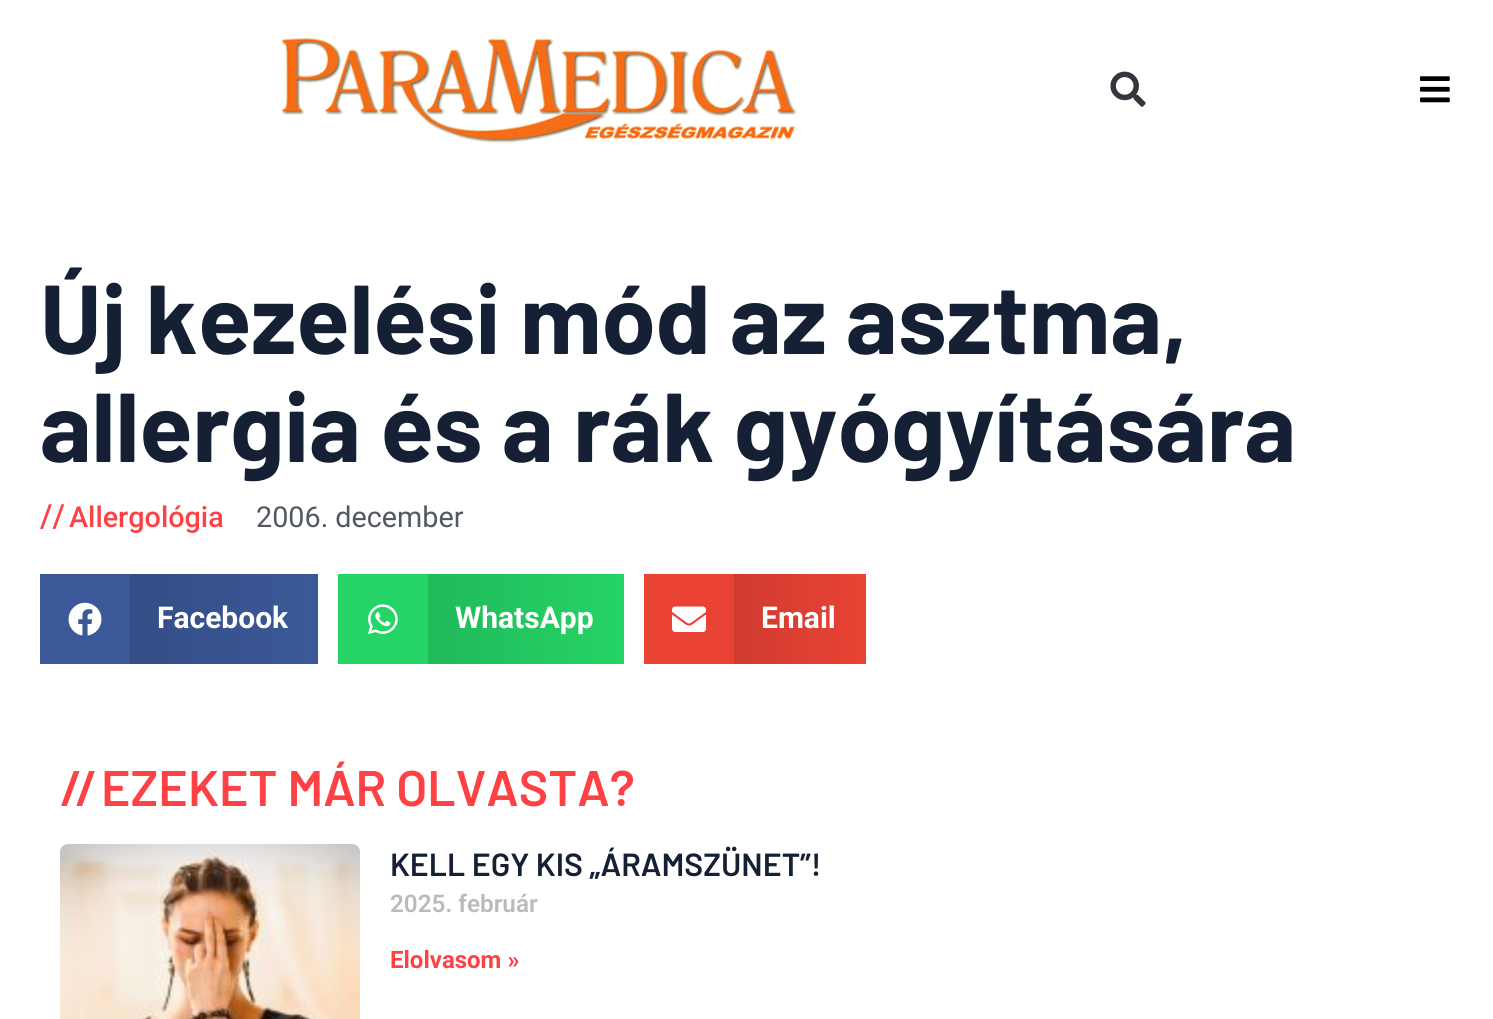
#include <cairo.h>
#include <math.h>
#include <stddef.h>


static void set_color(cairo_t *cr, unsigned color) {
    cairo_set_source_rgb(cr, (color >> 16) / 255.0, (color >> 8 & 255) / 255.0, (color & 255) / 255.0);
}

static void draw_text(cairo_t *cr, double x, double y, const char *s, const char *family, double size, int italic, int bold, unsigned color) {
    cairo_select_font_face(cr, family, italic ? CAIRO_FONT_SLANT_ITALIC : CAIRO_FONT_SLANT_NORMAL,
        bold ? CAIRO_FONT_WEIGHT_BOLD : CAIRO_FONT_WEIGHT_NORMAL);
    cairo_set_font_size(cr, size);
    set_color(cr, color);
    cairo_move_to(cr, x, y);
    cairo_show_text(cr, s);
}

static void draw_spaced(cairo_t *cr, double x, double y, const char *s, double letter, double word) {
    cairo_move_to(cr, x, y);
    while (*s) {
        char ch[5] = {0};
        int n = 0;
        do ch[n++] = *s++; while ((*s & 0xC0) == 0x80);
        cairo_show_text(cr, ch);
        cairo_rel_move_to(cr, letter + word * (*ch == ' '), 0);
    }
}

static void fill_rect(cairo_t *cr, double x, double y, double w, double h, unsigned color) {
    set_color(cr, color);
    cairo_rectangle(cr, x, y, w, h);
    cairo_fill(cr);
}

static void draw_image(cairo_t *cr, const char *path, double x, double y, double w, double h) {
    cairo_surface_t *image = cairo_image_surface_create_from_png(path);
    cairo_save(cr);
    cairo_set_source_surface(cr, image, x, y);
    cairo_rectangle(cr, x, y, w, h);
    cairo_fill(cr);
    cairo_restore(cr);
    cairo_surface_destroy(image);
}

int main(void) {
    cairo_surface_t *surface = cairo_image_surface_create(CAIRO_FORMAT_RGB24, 1493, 1019);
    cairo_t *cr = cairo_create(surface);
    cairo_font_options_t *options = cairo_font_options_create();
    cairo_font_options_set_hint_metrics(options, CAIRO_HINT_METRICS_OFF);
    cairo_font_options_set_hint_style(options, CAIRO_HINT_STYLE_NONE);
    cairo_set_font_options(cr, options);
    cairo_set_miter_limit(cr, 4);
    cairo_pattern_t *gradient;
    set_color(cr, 0xFFFFFF);
    cairo_paint(cr);
    draw_image(cr, "assets/img1.png", 280, 36, 517, 107);
    draw_image(cr, "assets/img2.png", 1110, 71, 36, 36);
    draw_image(cr, "assets/img3.png", 1420, 76, 30, 27);
    draw_text(cr, 40, 354, "Új kezelési mód az asztma,", "Barlow", 97.7, 0, 1, 0x152035);
    draw_text(cr, 40, 462, "allergia és a rák gyógyítására", "Barlow", 97.7, 0, 1, 0x152035);
    draw_text(cr, 40, 527, "//", "Roboto Medium", 32, 0, 0, 0xFD4145);
    draw_text(cr, 69, 527, "Allergológia", "Roboto Medium", 28.75, 0, 0, 0xFD4145);
    draw_text(cr, 256, 527, "2006. december", "Roboto", 28.75, 0, 0, 0x54595F);
    fill_rect(cr, 40, 574, 90, 90, 0x3B5998);
    draw_image(cr, "assets/img4.png", 68, 602, 34, 34);
    gradient = cairo_pattern_create_linear(130, 619, 318, 619);
    cairo_pattern_add_color_stop_rgba(gradient, 0, 0.204, 0.306, 0.525, 1);
    cairo_pattern_add_color_stop_rgba(gradient, 1, 0.231, 0.349, 0.596, 1);
    cairo_set_source(cr, gradient);
    cairo_pattern_destroy(gradient);
    cairo_rectangle(cr, 130, 574, 188, 90);
    cairo_fill(cr);
    draw_text(cr, 157, 628, "Facebook", "Roboto", 30, 0, 1, 0xFFFFFF);
    fill_rect(cr, 338, 574, 90, 90, 0x25D366);
    draw_image(cr, "assets/img5.png", 368, 604, 30, 31);
    gradient = cairo_pattern_create_linear(428, 619, 624, 619);
    cairo_pattern_add_color_stop_rgba(gradient, 0, 0.129, 0.729, 0.353, 1);
    cairo_pattern_add_color_stop_rgba(gradient, 1, 0.145, 0.827, 0.4, 1);
    cairo_set_source(cr, gradient);
    cairo_pattern_destroy(gradient);
    cairo_rectangle(cr, 428, 574, 196, 90);
    cairo_fill(cr);
    draw_text(cr, 455, 628, "WhatsApp", "Roboto", 30, 0, 1, 0xFFFFFF);
    fill_rect(cr, 644, 574, 90, 90, 0xEA4335);
    draw_image(cr, "assets/img6.png", 672, 606, 34, 26);
    gradient = cairo_pattern_create_linear(734, 619, 866, 619);
    cairo_pattern_add_color_stop_rgba(gradient, 0, 0.808, 0.231, 0.184, 1);
    cairo_pattern_add_color_stop_rgba(gradient, 1, 0.918, 0.263, 0.208, 1);
    cairo_set_source(cr, gradient);
    cairo_pattern_destroy(gradient);
    cairo_rectangle(cr, 734, 574, 132, 90);
    cairo_fill(cr);
    draw_text(cr, 761, 628, "Email", "Roboto", 30, 0, 1, 0xFFFFFF);
    cairo_select_font_face(cr, "Barlow SemiBold", CAIRO_FONT_SLANT_NORMAL, CAIRO_FONT_WEIGHT_NORMAL);
    cairo_set_font_size(cr, 50);
    set_color(cr, 0xFD4145);
    draw_spaced(cr, 60, 806, "//", -7, 0);
    draw_text(cr, 101, 806, "EZEKET MÁR OLVASTA?", "Barlow SemiBold", 50, 0, 0, 0xFD4145);
    draw_image(cr, "assets/img7.png", 60, 844, 300, 175);
    draw_text(cr, 390, 876, "KELL EGY KIS „ÁRAMSZÜNET”!", "Barlow SemiBold", 32, 0, 0, 0x152035);
    draw_text(cr, 390, 912, "2025. február", "Roboto SemiBold", 24.25, 0, 0, 0xB9BABC);
    draw_text(cr, 390, 968, "Elolvasom »", "Roboto", 24, 0, 1, 0xFD4145);
    cairo_surface_write_to_png(surface, "output.png");
    cairo_font_options_destroy(options);
    cairo_destroy(cr);
    cairo_surface_destroy(surface);
    return 0;
}
